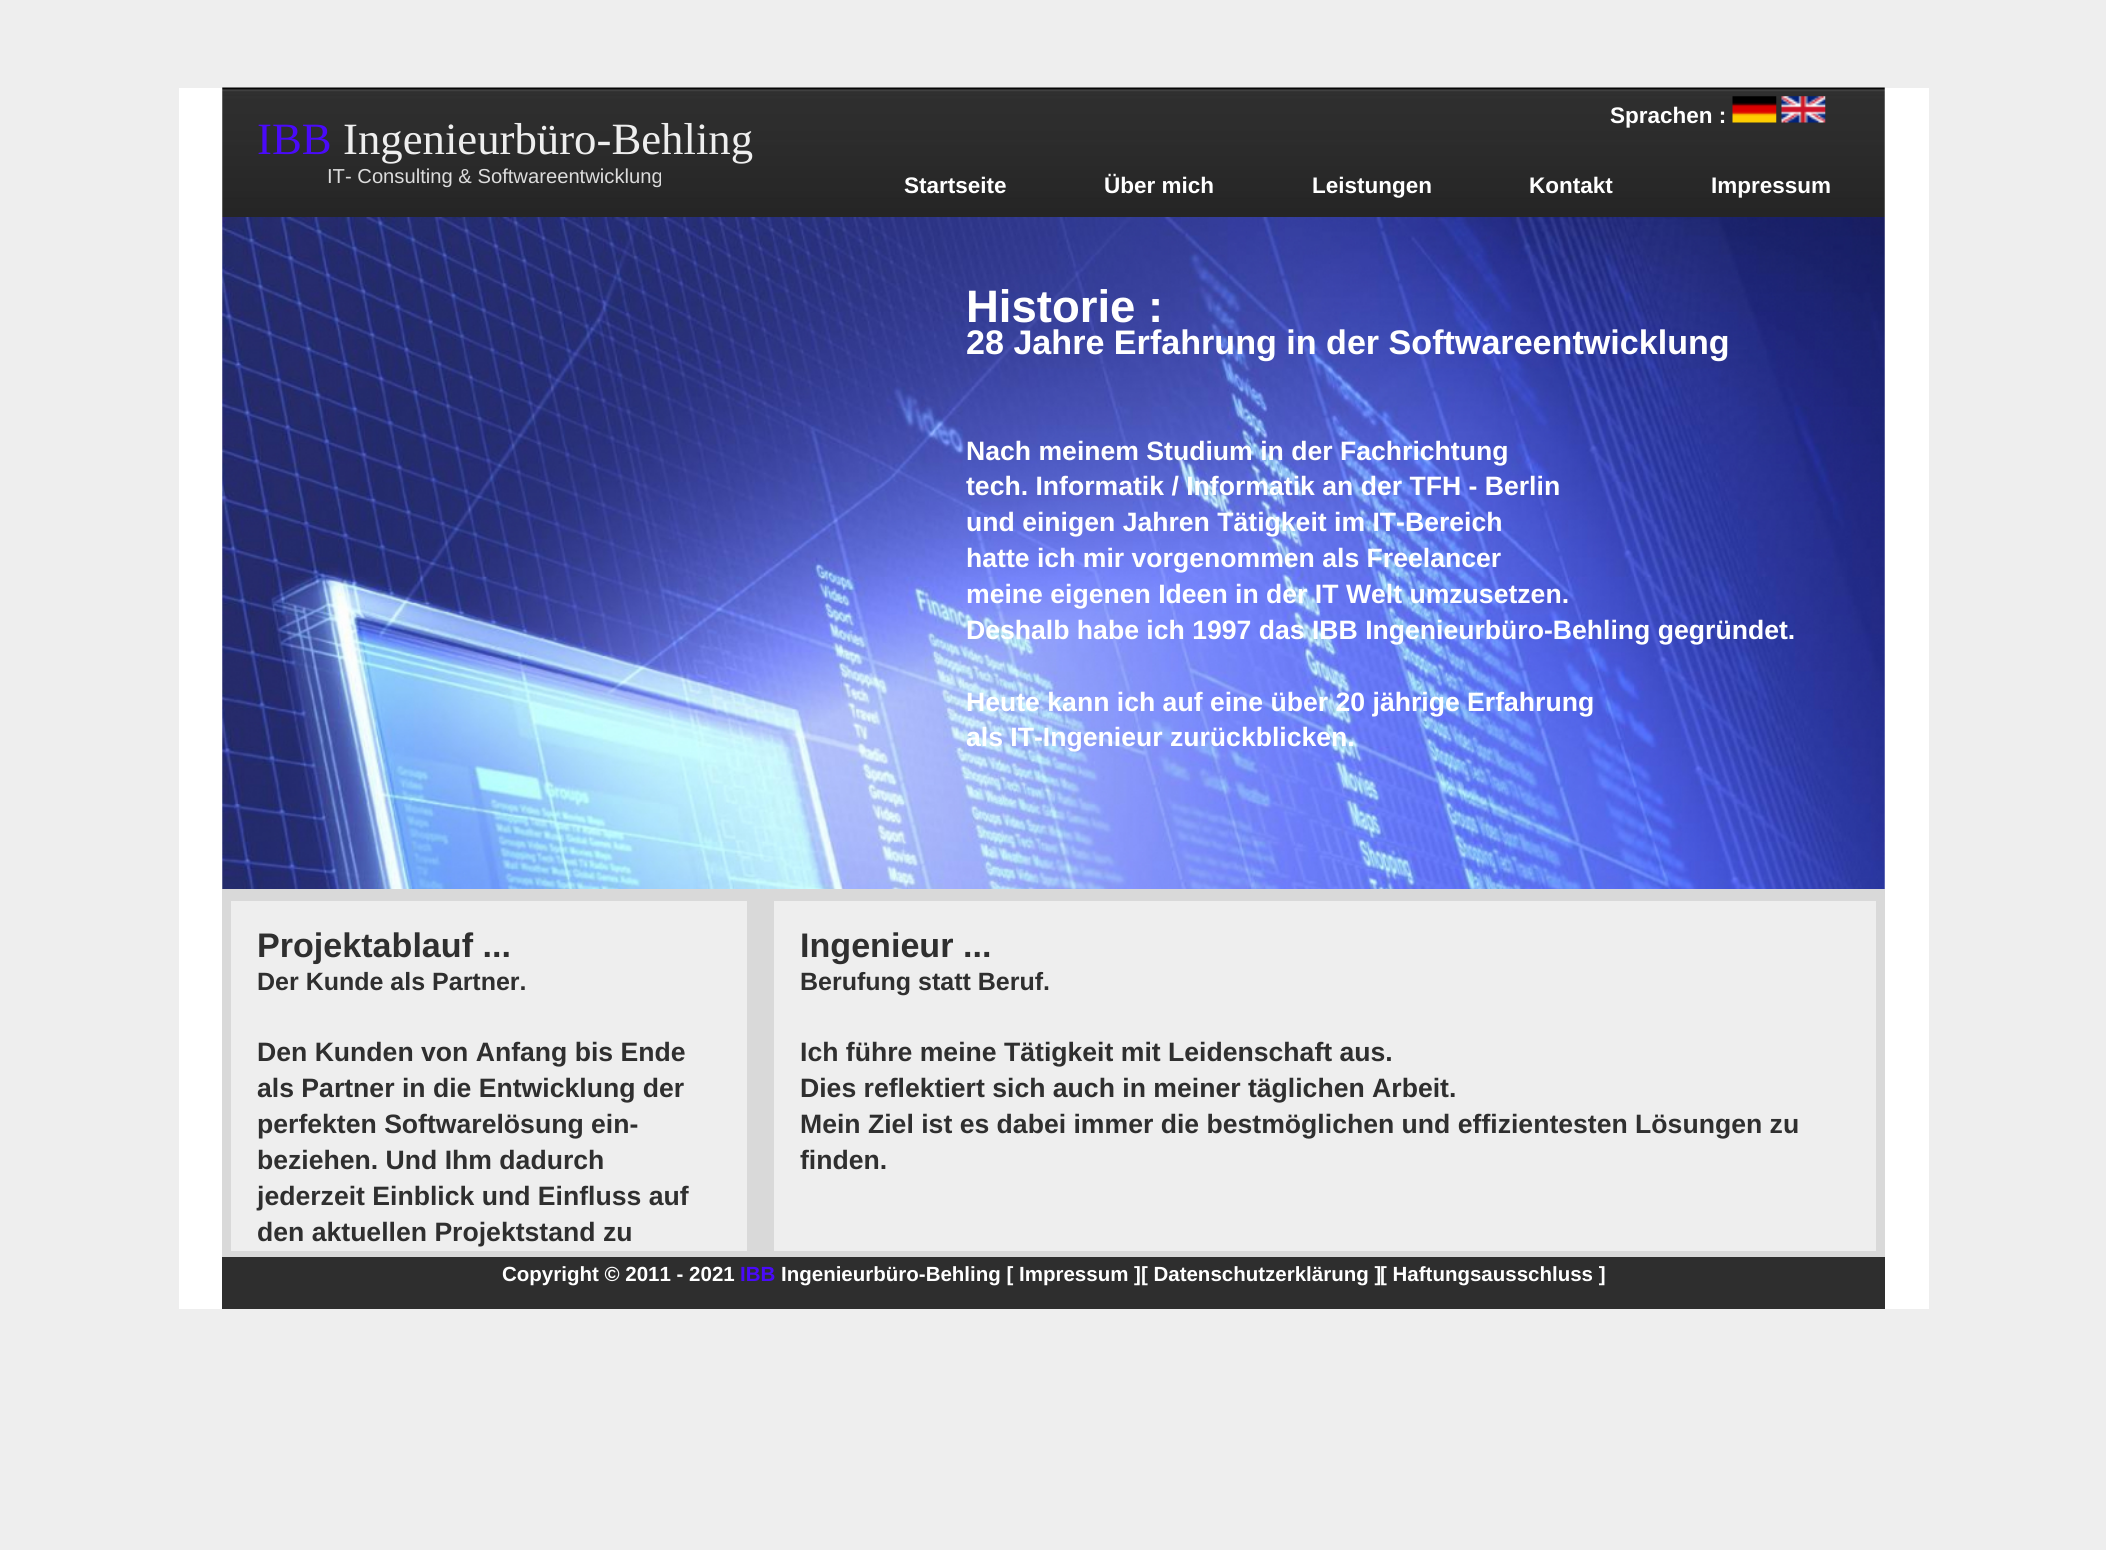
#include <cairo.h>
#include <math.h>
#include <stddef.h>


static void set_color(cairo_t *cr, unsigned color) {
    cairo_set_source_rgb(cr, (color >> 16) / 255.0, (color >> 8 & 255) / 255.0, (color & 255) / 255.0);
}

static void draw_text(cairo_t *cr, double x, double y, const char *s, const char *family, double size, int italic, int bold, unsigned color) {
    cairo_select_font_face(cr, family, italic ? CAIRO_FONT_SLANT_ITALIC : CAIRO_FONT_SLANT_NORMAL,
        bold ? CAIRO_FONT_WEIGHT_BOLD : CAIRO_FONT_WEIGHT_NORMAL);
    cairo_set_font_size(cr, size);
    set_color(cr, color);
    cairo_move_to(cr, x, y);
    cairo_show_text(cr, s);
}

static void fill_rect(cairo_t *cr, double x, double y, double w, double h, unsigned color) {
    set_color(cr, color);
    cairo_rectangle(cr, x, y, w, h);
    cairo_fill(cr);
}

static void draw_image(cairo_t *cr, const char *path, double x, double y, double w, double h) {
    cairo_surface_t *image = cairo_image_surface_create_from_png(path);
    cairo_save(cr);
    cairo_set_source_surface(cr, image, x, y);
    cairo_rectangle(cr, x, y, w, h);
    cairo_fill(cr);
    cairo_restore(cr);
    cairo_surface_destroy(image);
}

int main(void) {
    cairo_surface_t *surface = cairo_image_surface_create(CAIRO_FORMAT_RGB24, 2106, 1550);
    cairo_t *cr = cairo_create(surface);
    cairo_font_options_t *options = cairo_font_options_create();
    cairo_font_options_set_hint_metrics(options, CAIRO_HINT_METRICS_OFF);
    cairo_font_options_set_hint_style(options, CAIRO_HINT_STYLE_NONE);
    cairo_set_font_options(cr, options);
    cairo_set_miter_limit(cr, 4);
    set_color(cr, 0xEEEEEE);
    cairo_paint(cr);
    fill_rect(cr, 179, 88, 1750, 1221, 0xFFFFFF);
    draw_image(cr, "assets/img1.png", 222, 87, 1663, 130);
    draw_text(cr, 1610, 123, "Sprachen :", "Liberation Sans", 22.5, 0, 1, 0xFFFFFF);
    draw_image(cr, "assets/img2.png", 1732, 96, 45, 27);
    draw_image(cr, "assets/img3.png", 1781, 96, 45, 27);
    draw_text(cr, 257, 154, "IBB", "Liberation Serif", 44.75, 0, 0, 0x4A0AFA);
    draw_text(cr, 343, 154, "Ingenieurbüro-Behling", "Liberation Serif", 44.75, 0, 0, 0xEEEEEE);
    draw_text(cr, 327, 183, "IT- Consulting & Softwareentwicklung", "Liberation Sans", 20.2, 0, 0, 0xDCDCDC);
    draw_text(cr, 904, 193, "Startseite", "Liberation Sans", 22.5, 0, 1, 0xFFFFFF);
    draw_text(cr, 1104, 193, "Über mich", "Liberation Sans", 22.5, 0, 1, 0xFFFFFF);
    draw_text(cr, 1312, 193, "Leistungen", "Liberation Sans", 22.5, 0, 1, 0xFFFFFF);
    draw_text(cr, 1529, 193, "Kontakt", "Liberation Sans", 22.5, 0, 1, 0xFFFFFF);
    draw_text(cr, 1711, 193, "Impressum", "Liberation Sans", 22.5, 0, 1, 0xFFFFFF);
    draw_image(cr, "assets/img4.png", 222, 217, 1663, 672);
    draw_text(cr, 966, 322, "Historie :", "Liberation Sans", 45.5, 0, 1, 0xFFFFFF);
    draw_text(cr, 966, 354, "28 Jahre Erfahrung in der Softwareentwicklung", "Liberation Sans", 34.1, 0, 1, 0xFFFFFF);
    draw_text(cr, 966, 460, "Nach meinem Studium in der Fachrichtung", "Liberation Sans", 26.6, 0, 1, 0xFFFFFF);
    draw_text(cr, 966, 495, "tech. Informatik / Informatik an der TFH - Berlin", "Liberation Sans", 26.6, 0, 1, 0xFFFFFF);
    draw_text(cr, 966, 531, "und einigen Jahren Tätigkeit im IT-Bereich", "Liberation Sans", 26.6, 0, 1, 0xFFFFFF);
    draw_text(cr, 966, 567, "hatte ich mir vorgenommen als Freelancer", "Liberation Sans", 26.6, 0, 1, 0xFFFFFF);
    draw_text(cr, 966, 603, "meine eigenen Ideen in der IT Welt umzusetzen.", "Liberation Sans", 26.6, 0, 1, 0xFFFFFF);
    draw_text(cr, 966, 639, "Deshalb habe ich 1997 das IBB Ingenieurbüro-Behling gegründet.", "Liberation Sans", 26.6, 0, 1, 0xFFFFFF);
    draw_text(cr, 966, 711, "Heute kann ich auf eine über 20 jährige Erfahrung", "Liberation Sans", 26.6, 0, 1, 0xFFFFFF);
    draw_text(cr, 966, 746, "als IT-Ingenieur zurückblicken.", "Liberation Sans", 26.6, 0, 1, 0xFFFFFF);
    fill_rect(cr, 222, 889, 1663, 368, 0xD9D9D9);
    fill_rect(cr, 231, 901, 516, 350, 0xEEEEEE);
    draw_text(cr, 257, 957, "Projektablauf ...", "Liberation Sans", 34.1, 0, 1, 0x2F2F2F);
    draw_text(cr, 257, 990, "Der Kunde als Partner.", "Liberation Sans", 25, 0, 1, 0x2F2F2F);
    draw_text(cr, 257, 1061, "Den Kunden von Anfang bis Ende", "Liberation Sans", 26.6, 0, 1, 0x2F2F2F);
    draw_text(cr, 257, 1097, "als Partner in die Entwicklung der", "Liberation Sans", 26.6, 0, 1, 0x2F2F2F);
    draw_text(cr, 257, 1133, "perfekten Softwarelösung ein-", "Liberation Sans", 26.6, 0, 1, 0x2F2F2F);
    draw_text(cr, 257, 1169, "beziehen. Und Ihm dadurch", "Liberation Sans", 26.6, 0, 1, 0x2F2F2F);
    draw_text(cr, 257, 1205, "jederzeit Einblick und Einfluss auf", "Liberation Sans", 26.6, 0, 1, 0x2F2F2F);
    draw_text(cr, 257, 1241, "den aktuellen Projektstand zu", "Liberation Sans", 26.6, 0, 1, 0x2F2F2F);
    fill_rect(cr, 774, 901, 1102, 350, 0xEEEEEE);
    draw_text(cr, 800, 957, "Ingenieur ...", "Liberation Sans", 34.1, 0, 1, 0x2F2F2F);
    draw_text(cr, 800, 990, "Berufung statt Beruf.", "Liberation Sans", 25, 0, 1, 0x2F2F2F);
    draw_text(cr, 800, 1061, "Ich führe meine Tätigkeit mit Leidenschaft aus.", "Liberation Sans", 26.6, 0, 1, 0x2F2F2F);
    draw_text(cr, 800, 1097, "Dies reflektiert sich auch in meiner täglichen Arbeit.", "Liberation Sans", 26.6, 0, 1, 0x2F2F2F);
    draw_text(cr, 800, 1133, "Mein Ziel ist es dabei immer die bestmöglichen und effizientesten Lösungen zu", "Liberation Sans", 26.6, 0, 1, 0x2F2F2F);
    draw_text(cr, 800, 1169, "finden.", "Liberation Sans", 26.6, 0, 1, 0x2F2F2F);
    fill_rect(cr, 222, 1257, 1663, 52, 0x2E2E2E);
    draw_text(cr, 502, 1281, "Copyright © 2011 - 2021", "Liberation Sans", 20.5, 0, 1, 0xFFFFFF);
    draw_text(cr, 740, 1281, "IBB", "Liberation Sans", 20.5, 0, 1, 0x4A0AFA);
    draw_text(cr, 781, 1281, "Ingenieurbüro-Behling [ Impressum ][ Datenschutzerklärung ]", "Liberation Sans", 20.5, 0, 1, 0xFFFFFF);
    draw_text(cr, 1380, 1281, "[ Haftungsausschluss ]", "Liberation Sans", 20.5, 0, 1, 0xFFFFFF);
    cairo_surface_write_to_png(surface, "output.png");
    cairo_font_options_destroy(options);
    cairo_destroy(cr);
    cairo_surface_destroy(surface);
    return 0;
}
